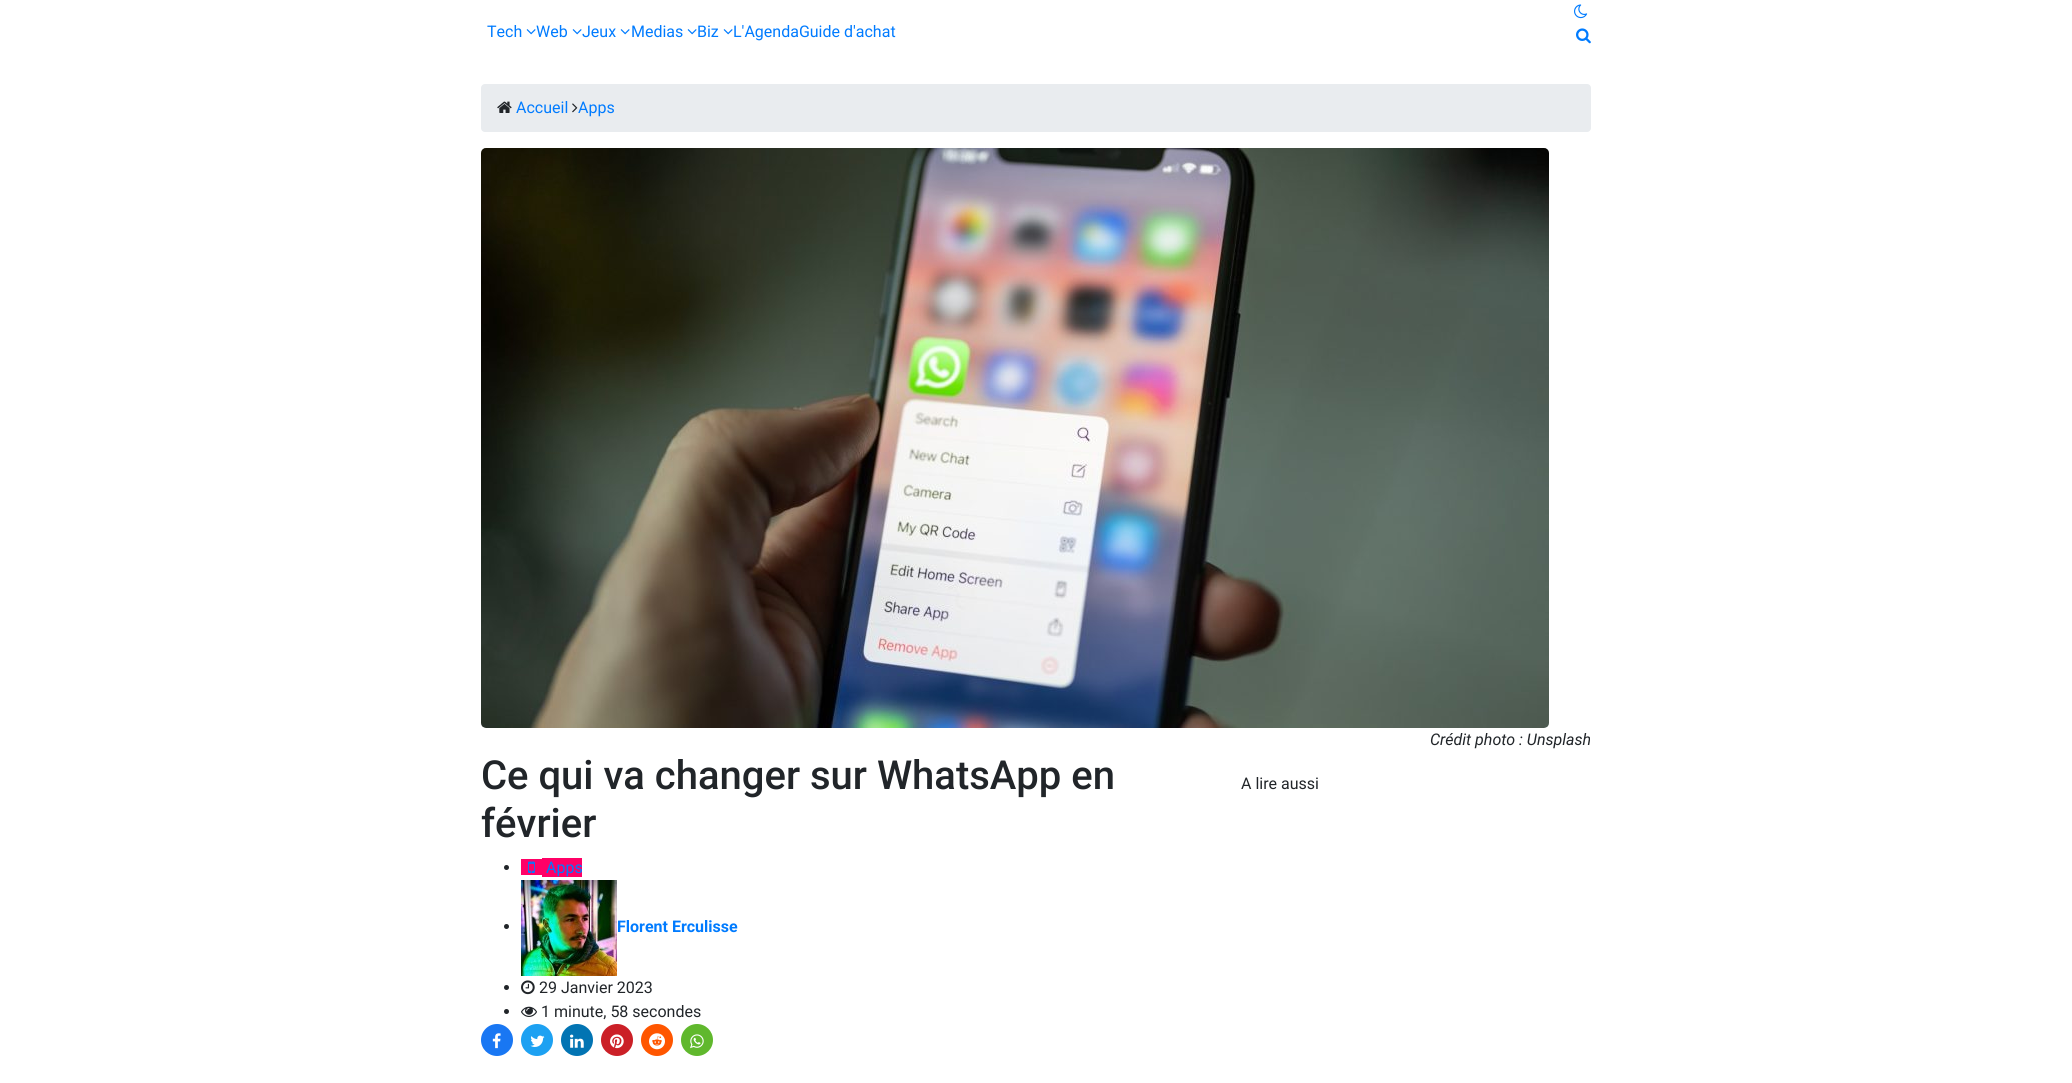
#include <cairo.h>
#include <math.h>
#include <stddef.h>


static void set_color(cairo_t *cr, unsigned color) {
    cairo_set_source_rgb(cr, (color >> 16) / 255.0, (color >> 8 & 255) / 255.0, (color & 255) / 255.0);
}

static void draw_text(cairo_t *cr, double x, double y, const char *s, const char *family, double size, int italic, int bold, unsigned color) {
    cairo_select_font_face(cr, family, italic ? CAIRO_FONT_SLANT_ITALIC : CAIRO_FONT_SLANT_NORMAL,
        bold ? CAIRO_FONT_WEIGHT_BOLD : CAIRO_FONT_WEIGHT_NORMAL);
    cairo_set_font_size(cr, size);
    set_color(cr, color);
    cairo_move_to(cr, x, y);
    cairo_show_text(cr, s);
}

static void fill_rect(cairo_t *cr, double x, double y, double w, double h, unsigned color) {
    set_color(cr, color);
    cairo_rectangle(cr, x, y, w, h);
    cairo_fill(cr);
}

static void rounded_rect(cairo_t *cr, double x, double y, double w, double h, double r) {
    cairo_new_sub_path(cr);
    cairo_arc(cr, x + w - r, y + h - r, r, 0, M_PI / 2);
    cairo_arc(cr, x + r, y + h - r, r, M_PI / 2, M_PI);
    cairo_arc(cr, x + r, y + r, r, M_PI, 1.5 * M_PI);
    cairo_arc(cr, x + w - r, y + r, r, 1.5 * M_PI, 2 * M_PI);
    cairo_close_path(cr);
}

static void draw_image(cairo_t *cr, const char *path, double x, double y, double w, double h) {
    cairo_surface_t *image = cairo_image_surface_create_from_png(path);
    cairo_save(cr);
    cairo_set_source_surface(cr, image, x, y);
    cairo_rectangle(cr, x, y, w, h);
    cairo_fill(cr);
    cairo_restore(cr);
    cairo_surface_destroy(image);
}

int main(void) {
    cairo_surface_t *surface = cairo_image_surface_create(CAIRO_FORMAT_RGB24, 2072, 1083);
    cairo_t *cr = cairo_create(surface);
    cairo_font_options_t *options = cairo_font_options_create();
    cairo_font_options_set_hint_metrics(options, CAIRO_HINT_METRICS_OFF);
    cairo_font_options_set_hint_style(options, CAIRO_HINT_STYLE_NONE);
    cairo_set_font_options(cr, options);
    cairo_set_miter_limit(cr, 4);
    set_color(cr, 0xFFFFFF);
    cairo_paint(cr);
    draw_text(cr, 487, 37, "Tech", "Roboto", 16, 0, 0, 0x007BFF);
    draw_image(cr, "assets/img1.png", 526, 29, 10, 6);
    draw_text(cr, 536, 37, "Web", "Roboto", 16, 0, 0, 0x007BFF);
    draw_image(cr, "assets/img1.png", 572, 29, 10, 6);
    draw_text(cr, 582, 37, "Jeux", "Roboto", 16, 0, 0, 0x007BFF);
    draw_image(cr, "assets/img1.png", 620, 29, 10, 6);
    draw_text(cr, 631, 37, "Medias", "Roboto", 16, 0, 0, 0x007BFF);
    draw_image(cr, "assets/img1.png", 687, 29, 10, 6);
    draw_text(cr, 697, 37, "Biz", "Roboto", 16, 0, 0, 0x007BFF);
    draw_image(cr, "assets/img1.png", 723, 29, 10, 6);
    draw_text(cr, 733, 37, "L'AgendaGuide d'achat", "Roboto", 16, 0, 0, 0x007BFF);
    draw_image(cr, "assets/img2.png", 1574, 4, 14, 15);
    draw_image(cr, "assets/img3.png", 1576, 28, 15, 16);
    set_color(cr, 0xE9ECEF);
    rounded_rect(cr, 481, 84, 1110, 48, 4);
    cairo_fill(cr);
    draw_image(cr, "assets/img4.png", 497, 101, 15, 12);
    draw_text(cr, 516, 113, "Accueil", "Roboto", 16, 0, 0, 0x007BFF);
    draw_image(cr, "assets/img5.png", 572, 103, 6, 10);
    draw_text(cr, 578, 113, "Apps", "Roboto", 16, 0, 0, 0x007BFF);
    draw_image(cr, "assets/img6.png", 481, 148, 1068, 580);
    draw_text(cr, 1430, 745, "Crédit photo : Unsplash", "Roboto", 16, 1, 0, 0x212529);
    draw_text(cr, 481, 789, "Ce qui va changer sur WhatsApp en", "Roboto Medium", 40, 0, 0, 0x212529);
    draw_text(cr, 481, 837, "février", "Roboto Medium", 40, 0, 0, 0x212529);
    cairo_new_path(cr);
    cairo_arc(cr, 506.5, 867.5, 2.5, 0, 2 * M_PI);
    cairo_fill(cr);
    fill_rect(cr, 521, 859, 21, 16, 0xFF0066);
    fill_rect(cr, 542, 858, 40, 19, 0xFF0066);
    draw_image(cr, "assets/img7.png", 528, 861, 7, 12);
    draw_text(cr, 546, 873, "Apps", "Roboto", 16, 0, 0, 0x007BFF);
    set_color(cr, 0x212529);
    cairo_new_path(cr);
    cairo_arc(cr, 506.5, 926.5, 2.5, 0, 2 * M_PI);
    cairo_fill(cr);
    draw_image(cr, "assets/img8.png", 521, 880, 96, 96);
    draw_text(cr, 617, 932, "Florent Erculisse", "Roboto", 16, 0, 1, 0x007BFF);
    set_color(cr, 0x212529);
    cairo_new_path(cr);
    cairo_arc(cr, 506.5, 987.5, 2.5, 0, 2 * M_PI);
    cairo_fill(cr);
    draw_image(cr, "assets/img9.png", 521, 980, 14, 15);
    draw_text(cr, 539, 993, "29 Janvier 2023", "Roboto", 16, 0, 0, 0x212529);
    cairo_new_path(cr);
    cairo_arc(cr, 506.5, 1011.5, 2.5, 0, 2 * M_PI);
    cairo_fill(cr);
    draw_image(cr, "assets/img10.png", 521, 1006, 16, 11);
    draw_text(cr, 541, 1017, "1 minute, 58 secondes", "Roboto", 16, 0, 0, 0x212529);
    set_color(cr, 0x1977F3);
    cairo_new_path(cr);
    cairo_arc(cr, 497, 1040, 16, 0, 2 * M_PI);
    cairo_fill(cr);
    draw_image(cr, "assets/img11.png", 492, 1033, 9, 16);
    set_color(cr, 0x1DA1F2);
    cairo_arc(cr, 537, 1040, 16, 0, 2 * M_PI);
    cairo_fill(cr);
    draw_image(cr, "assets/img12.png", 530, 1035, 15, 12);
    set_color(cr, 0x0274B3);
    cairo_arc(cr, 577, 1040, 16, 0, 2 * M_PI);
    cairo_fill(cr);
    draw_image(cr, "assets/img13.png", 570, 1034, 14, 14);
    set_color(cr, 0xCB2027);
    cairo_arc(cr, 617, 1040, 16, 0, 2 * M_PI);
    cairo_fill(cr);
    draw_image(cr, "assets/img14.png", 610, 1034, 14, 15);
    set_color(cr, 0xFF5600);
    cairo_arc(cr, 657, 1040, 16, 0, 2 * M_PI);
    cairo_fill(cr);
    draw_image(cr, "assets/img15.png", 649, 1033, 16, 17);
    set_color(cr, 0x60B82D);
    cairo_arc(cr, 697, 1040, 16, 0, 2 * M_PI);
    cairo_fill(cr);
    draw_image(cr, "assets/img16.png", 690, 1034, 14, 15);
    draw_text(cr, 1241, 789, "A lire aussi", "Roboto", 16, 0, 0, 0x212529);
    cairo_surface_write_to_png(surface, "output.png");
    cairo_font_options_destroy(options);
    cairo_destroy(cr);
    cairo_surface_destroy(surface);
    return 0;
}
